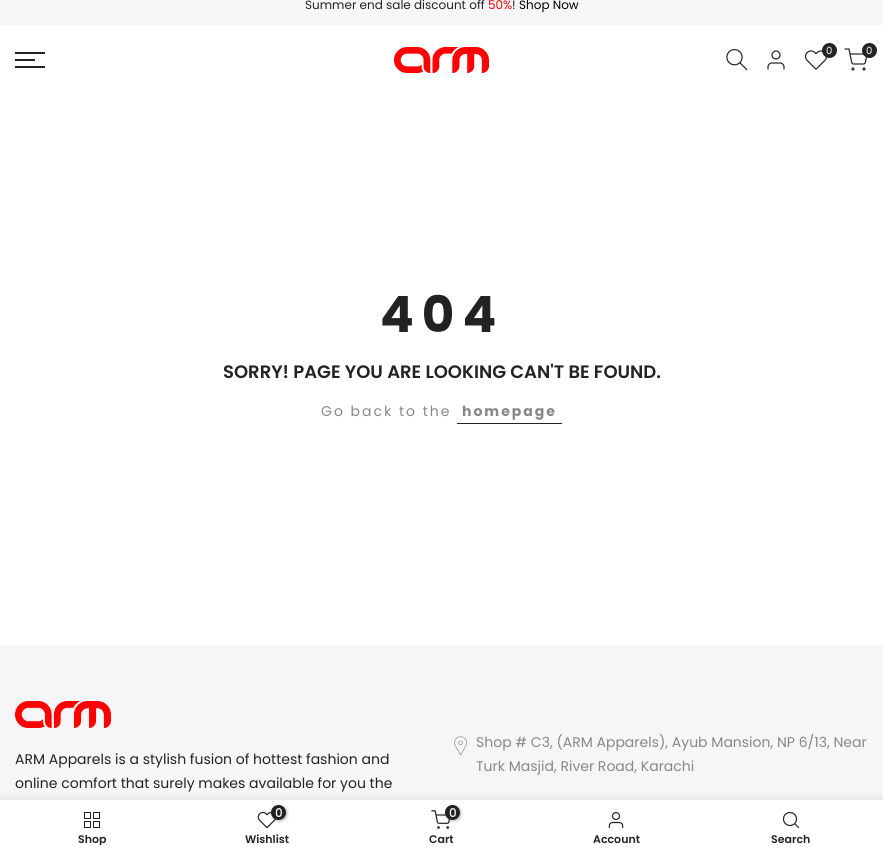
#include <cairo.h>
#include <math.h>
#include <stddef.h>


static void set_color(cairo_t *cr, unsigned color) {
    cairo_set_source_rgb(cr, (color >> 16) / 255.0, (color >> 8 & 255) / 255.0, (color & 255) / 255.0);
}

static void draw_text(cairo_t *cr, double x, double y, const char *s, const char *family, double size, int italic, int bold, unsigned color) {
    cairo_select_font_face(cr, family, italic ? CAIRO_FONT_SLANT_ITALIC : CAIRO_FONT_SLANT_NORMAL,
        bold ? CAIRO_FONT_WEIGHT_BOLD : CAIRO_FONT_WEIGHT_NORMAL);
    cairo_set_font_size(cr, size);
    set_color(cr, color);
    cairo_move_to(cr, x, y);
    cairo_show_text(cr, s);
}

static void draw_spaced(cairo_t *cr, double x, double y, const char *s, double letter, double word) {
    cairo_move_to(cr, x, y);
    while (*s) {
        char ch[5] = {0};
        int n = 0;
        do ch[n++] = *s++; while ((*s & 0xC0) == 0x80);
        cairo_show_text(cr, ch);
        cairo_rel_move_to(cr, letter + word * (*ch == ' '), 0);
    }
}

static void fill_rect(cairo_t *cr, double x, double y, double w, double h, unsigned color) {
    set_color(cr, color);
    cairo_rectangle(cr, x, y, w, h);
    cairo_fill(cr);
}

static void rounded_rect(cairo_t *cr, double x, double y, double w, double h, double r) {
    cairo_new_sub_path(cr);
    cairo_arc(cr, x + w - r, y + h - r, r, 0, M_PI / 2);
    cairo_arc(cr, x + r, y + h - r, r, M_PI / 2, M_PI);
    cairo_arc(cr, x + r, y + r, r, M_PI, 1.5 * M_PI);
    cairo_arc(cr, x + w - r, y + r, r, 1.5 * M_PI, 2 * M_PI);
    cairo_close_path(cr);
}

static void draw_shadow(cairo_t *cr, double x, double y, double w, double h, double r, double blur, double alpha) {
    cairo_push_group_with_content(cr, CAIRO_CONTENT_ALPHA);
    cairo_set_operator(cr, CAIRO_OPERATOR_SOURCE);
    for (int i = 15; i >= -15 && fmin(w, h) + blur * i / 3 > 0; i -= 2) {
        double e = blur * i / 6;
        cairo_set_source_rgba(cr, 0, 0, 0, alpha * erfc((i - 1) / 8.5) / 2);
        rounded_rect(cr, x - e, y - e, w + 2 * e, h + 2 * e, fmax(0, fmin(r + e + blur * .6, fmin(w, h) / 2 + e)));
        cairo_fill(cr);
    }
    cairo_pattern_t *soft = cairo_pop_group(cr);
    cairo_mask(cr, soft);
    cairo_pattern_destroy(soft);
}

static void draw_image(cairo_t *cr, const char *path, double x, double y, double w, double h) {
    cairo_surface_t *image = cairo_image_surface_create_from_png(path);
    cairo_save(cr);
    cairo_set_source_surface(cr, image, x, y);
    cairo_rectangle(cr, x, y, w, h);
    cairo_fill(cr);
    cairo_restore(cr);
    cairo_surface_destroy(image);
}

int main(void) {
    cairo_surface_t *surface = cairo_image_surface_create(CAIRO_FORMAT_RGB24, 883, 855);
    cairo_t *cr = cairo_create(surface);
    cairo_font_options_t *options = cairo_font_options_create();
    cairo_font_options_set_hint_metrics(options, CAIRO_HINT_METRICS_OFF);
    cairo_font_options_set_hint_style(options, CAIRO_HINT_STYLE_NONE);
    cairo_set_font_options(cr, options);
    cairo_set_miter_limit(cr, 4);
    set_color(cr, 0xFFFFFF);
    cairo_paint(cr);
    fill_rect(cr, 0, 0, 883, 25, 0xF6F6F8);
    draw_text(cr, 305, 9, "Summer end sale discount off", "Poppins", 12, 0, 0, 0x222222);
    draw_text(cr, 488, 9, "50%", "Poppins", 12, 0, 0, 0xEC0101);
    draw_text(cr, 512, 9, "!", "Poppins", 12, 0, 0, 0x222222);
    draw_text(cr, 519, 9, "Shop Now", "Poppins", 12, 0, 0, 0x000000);
    fill_rect(cr, 15, 52, 30, 2, 0x222222);
    fill_rect(cr, 15, 59, 20, 2, 0x222222);
    fill_rect(cr, 15, 66, 30, 2, 0x222222);
    draw_image(cr, "assets/img1.png", 394, 47, 95, 26);
    draw_image(cr, "assets/img2.png", 726, 49, 22, 22);
    draw_image(cr, "assets/img3.png", 767, 50, 18, 20);
    draw_image(cr, "assets/img4.png", 804, 50, 23, 20);
    cairo_arc(cr, 829.5, 50.5, 7.5, 0, 2 * M_PI);
    cairo_fill(cr);
    draw_text(cr, 826, 54, "0", "Poppins", 10, 0, 0, 0xFFFFFF);
    draw_image(cr, "assets/img5.png", 844, 48, 23, 23);
    set_color(cr, 0x222222);
    cairo_arc(cr, 869.5, 50.5, 7.5, 0, 2 * M_PI);
    cairo_fill(cr);
    draw_text(cr, 866, 54, "0", "Poppins", 10, 0, 0, 0xFFFFFF);
    cairo_select_font_face(cr, "Poppins", CAIRO_FONT_SLANT_NORMAL, CAIRO_FONT_WEIGHT_BOLD);
    cairo_set_font_size(cr, 50);
    set_color(cr, 0x222222);
    draw_spaced(cr, 380, 332, "404", 8, 0);
    draw_text(cr, 223, 378, "SORRY! PAGE YOU ARE LOOKING CAN'T BE FOUND.", "Poppins SemiBold", 18, 0, 0, 0x222222);
    cairo_select_font_face(cr, "Poppins", CAIRO_FONT_SLANT_NORMAL, CAIRO_FONT_WEIGHT_NORMAL);
    cairo_set_font_size(cr, 14);
    set_color(cr, 0x878787);
    draw_spaced(cr, 321, 416, "Go back to the", 2, 0);
    cairo_select_font_face(cr, "Poppins", CAIRO_FONT_SLANT_NORMAL, CAIRO_FONT_WEIGHT_BOLD);
    draw_spaced(cr, 462, 416, "homepage", 2, 0);
    fill_rect(cr, 457, 423, 105, 1, 0x222222);
    fill_rect(cr, 0, 645, 883, 155, 0xF6F6F8);
    draw_image(cr, "assets/img6.png", 15, 701, 96, 27);
    draw_text(cr, 15, 764, "ARM Apparels is a stylish fusion of hottest fashion and", "Poppins", 14, 0, 0, 0x222222);
    draw_text(cr, 15, 788, "online comfort that surely makes available for you the", "Poppins", 14, 0, 0, 0x222222);
    draw_image(cr, "assets/img7.png", 454, 736, 13, 20);
    draw_text(cr, 476, 747, "Shop # C3, (ARM Apparels), Ayub Mansion, NP 6/13, Near", "Poppins", 14, 0, 0, 0x878787);
    draw_text(cr, 476, 771, "Turk Masjid, River Road, Karachi", "Poppins", 14, 0, 0, 0x878787);
    set_color(cr, 0x000000);
    draw_shadow(cr, 0, 800, 883, 55, 0, 4.5, 0.12);
    fill_rect(cr, 0, 800, 883, 55, 0xFFFFFF);
    draw_image(cr, "assets/img8.png", 84, 812, 16, 16);
    cairo_save(cr);
    cairo_rectangle(cr, 15, 834, 155, 11);
    cairo_clip(cr);
    draw_text(cr, 78, 843, "Shop", "Poppins SemiBold", 11, 0, 0, 0x222222);
    cairo_restore(cr);
    draw_image(cr, "assets/img9.png", 257, 811, 19, 18);
    set_color(cr, 0x000000);
    draw_shadow(cr, 272, 806, 15, 15, 7.5, 1.5, 0.3);
    set_color(cr, 0x222222);
    cairo_arc(cr, 278.5, 812.5, 7.5, 0, 2 * M_PI);
    cairo_fill(cr);
    draw_text(cr, 275, 817, "0", "Poppins Medium", 12, 0, 0, 0xFFFFFF);
    draw_text(cr, 245, 843, "Wishlist", "Poppins SemiBold", 11, 0, 0, 0x222222);
    draw_image(cr, "assets/img10.png", 431, 810, 19, 19);
    set_color(cr, 0x000000);
    draw_shadow(cr, 446, 806, 15, 15, 7.5, 1.5, 0.3);
    set_color(cr, 0x222222);
    cairo_arc(cr, 452.5, 812.5, 7.5, 0, 2 * M_PI);
    cairo_fill(cr);
    draw_text(cr, 449, 817, "0", "Poppins Medium", 12, 0, 0, 0xFFFFFF);
    draw_text(cr, 429, 843, "Cart", "Poppins SemiBold", 11, 0, 0, 0x222222);
    draw_image(cr, "assets/img11.png", 608, 811, 16, 18);
    draw_text(cr, 593, 843, "Account", "Poppins SemiBold", 11, 0, 0, 0x222222);
    cairo_new_path(cr);
    cairo_arc(cr, 790, 819, 6.5, 0, 2 * M_PI);
    cairo_set_line_width(cr, 1.2);
    cairo_stroke(cr);
    cairo_new_path(cr);
    cairo_move_to(cr, 798.5, 827.5);
    cairo_line_to(cr, 795, 824);
    cairo_set_line_cap(cr, CAIRO_LINE_CAP_ROUND);
    cairo_set_line_join(cr, CAIRO_LINE_JOIN_ROUND);
    cairo_stroke(cr);
    draw_text(cr, 771, 843, "Search", "Poppins SemiBold", 11, 0, 0, 0x222222);
    cairo_surface_write_to_png(surface, "output.png");
    cairo_font_options_destroy(options);
    cairo_destroy(cr);
    cairo_surface_destroy(surface);
    return 0;
}
